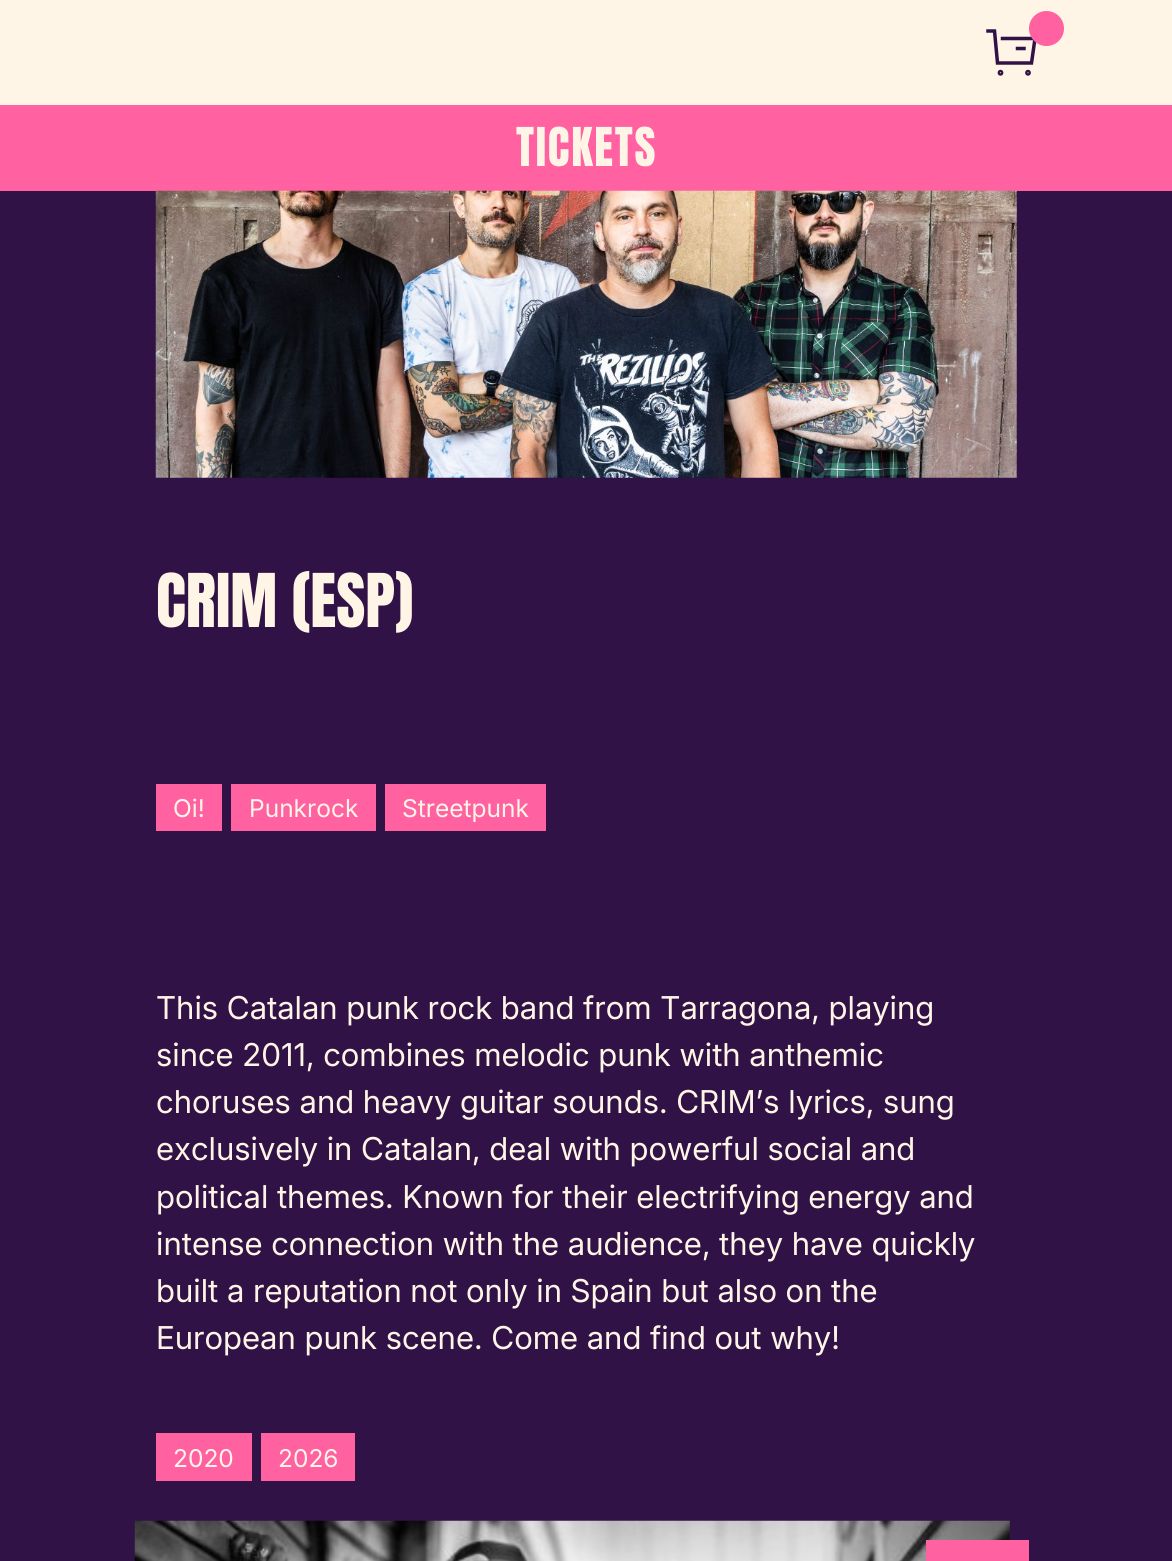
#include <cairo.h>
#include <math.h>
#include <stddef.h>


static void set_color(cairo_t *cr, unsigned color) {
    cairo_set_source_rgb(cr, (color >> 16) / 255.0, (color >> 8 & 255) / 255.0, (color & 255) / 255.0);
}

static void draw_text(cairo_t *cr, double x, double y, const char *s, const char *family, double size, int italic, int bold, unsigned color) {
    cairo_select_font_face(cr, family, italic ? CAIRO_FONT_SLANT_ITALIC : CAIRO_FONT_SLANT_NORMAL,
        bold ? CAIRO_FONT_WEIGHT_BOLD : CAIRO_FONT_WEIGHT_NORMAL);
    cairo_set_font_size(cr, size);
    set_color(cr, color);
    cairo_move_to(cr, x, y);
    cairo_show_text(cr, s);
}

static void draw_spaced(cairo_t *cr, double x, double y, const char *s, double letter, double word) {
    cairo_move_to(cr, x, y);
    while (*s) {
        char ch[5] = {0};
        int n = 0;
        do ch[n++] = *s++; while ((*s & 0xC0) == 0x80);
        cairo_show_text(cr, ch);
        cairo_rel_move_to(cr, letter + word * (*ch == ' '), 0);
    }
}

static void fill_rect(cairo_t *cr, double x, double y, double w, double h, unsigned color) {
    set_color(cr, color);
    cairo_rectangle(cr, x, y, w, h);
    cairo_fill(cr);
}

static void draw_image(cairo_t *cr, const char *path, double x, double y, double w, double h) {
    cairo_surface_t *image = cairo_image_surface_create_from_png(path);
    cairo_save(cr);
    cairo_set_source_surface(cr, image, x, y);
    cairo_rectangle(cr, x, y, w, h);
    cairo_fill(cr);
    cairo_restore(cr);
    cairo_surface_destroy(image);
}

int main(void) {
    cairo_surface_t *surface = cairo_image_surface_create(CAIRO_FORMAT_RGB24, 1172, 1561);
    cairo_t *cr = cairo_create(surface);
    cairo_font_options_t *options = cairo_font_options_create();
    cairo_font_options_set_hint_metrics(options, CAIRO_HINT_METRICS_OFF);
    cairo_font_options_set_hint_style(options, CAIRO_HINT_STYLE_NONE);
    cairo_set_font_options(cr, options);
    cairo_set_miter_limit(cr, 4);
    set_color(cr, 0x301246);
    cairo_paint(cr);
    fill_rect(cr, 0, 0, 1172, 105, 0xFFF5E6);
    cairo_new_path(cr);
    cairo_move_to(cr, 1017.5, 48.5);
    cairo_line_to(cr, 1024, 48.5);
    cairo_move_to(cr, 1002.5, 38.5);
    cairo_line_to(cr, 1035, 38.5);
    cairo_line_to(cr, 1031.5, 63);
    cairo_line_to(cr, 997.5, 63);
    cairo_line_to(cr, 994.5, 31);
    cairo_line_to(cr, 988, 31);
    cairo_move_to(cr, 1000.5, 71.5);
    cairo_curve_to(cr, 1002, 71.5, 1002, 74, 1000.5, 74);
    cairo_curve_to(cr, 999, 74, 999, 71.5, 1000.5, 71.5);
    cairo_close_path(cr);
    cairo_move_to(cr, 1028, 71.5);
    cairo_curve_to(cr, 1029.5, 71.5, 1029.5, 74, 1028, 74);
    cairo_curve_to(cr, 1026.5, 74, 1026.5, 71.5, 1028, 71.5);
    cairo_close_path(cr);
    set_color(cr, 0x301246);
    cairo_set_line_width(cr, 3.5);
    cairo_set_line_cap(cr, CAIRO_LINE_CAP_SQUARE);
    cairo_stroke(cr);
    set_color(cr, 0xFF61A1);
    cairo_arc(cr, 1046.5, 28.5, 17.5, 0, 2 * M_PI);
    cairo_fill(cr);
    fill_rect(cr, 0, 105, 1172, 86, 0xFF61A1);
    cairo_select_font_face(cr, "Anton", CAIRO_FONT_SLANT_NORMAL, CAIRO_FONT_WEIGHT_NORMAL);
    cairo_set_font_size(cr, 45.5);
    set_color(cr, 0xFFF5E6);
    draw_spaced(cr, 516, 166, "TICKETS", 1.75, 0);
    draw_image(cr, "assets/img1.png", 155, 190, 862, 288);
    draw_text(cr, 156, 627, "CRIM (ESP)", "Anton", 63, 0, 0, 0xFFF5E6);
    fill_rect(cr, 156, 784, 66, 47, 0xFF61A1);
    draw_text(cr, 173, 817, "Oi!", "Inter", 24.5, 0, 0, 0xFFF5E6);
    fill_rect(cr, 231, 784, 145, 47, 0xFF61A1);
    draw_text(cr, 249, 817, "Punkrock", "Inter", 24.5, 0, 0, 0xFFF5E6);
    fill_rect(cr, 385, 784, 161, 47, 0xFF61A1);
    draw_text(cr, 402, 817, "Streetpunk", "Inter", 24.5, 0, 0, 0xFFF5E6);
    draw_text(cr, 156, 1019, "This Catalan punk rock band from Tarragona, playing", "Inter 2", 31.5, 0, 0, 0xFFF5E6);
    draw_text(cr, 156, 1066, "since 2011, combines melodic punk with anthemic", "Inter 2", 31.5, 0, 0, 0xFFF5E6);
    draw_text(cr, 156, 1113, "choruses and heavy guitar sounds. CRIM’s lyrics, sung", "Inter 2", 31.5, 0, 0, 0xFFF5E6);
    draw_text(cr, 156, 1160, "exclusively in Catalan, deal with powerful social and", "Inter 2", 31.5, 0, 0, 0xFFF5E6);
    draw_text(cr, 156, 1208, "political themes. Known for their electrifying energy and", "Inter 2", 31.5, 0, 0, 0xFFF5E6);
    draw_text(cr, 156, 1255, "intense connection with the audience, they have quickly", "Inter 2", 31.5, 0, 0, 0xFFF5E6);
    draw_text(cr, 156, 1302, "built a reputation not only in Spain but also on the", "Inter 2", 31.5, 0, 0, 0xFFF5E6);
    draw_text(cr, 156, 1349, "European punk scene. Come and find out why!", "Inter 2", 31.5, 0, 0, 0xFFF5E6);
    fill_rect(cr, 156, 1433, 96, 48, 0xFF61A1);
    draw_text(cr, 173, 1467, "2020", "Inter", 24.5, 0, 0, 0xFFF5E6);
    fill_rect(cr, 261, 1433, 94, 48, 0xFF61A1);
    draw_text(cr, 278, 1467, "2026", "Inter", 24.5, 0, 0, 0xFFF5E6);
    draw_image(cr, "assets/img2.png", 134, 1520, 876, 41);
    fill_rect(cr, 926, 1540, 103, 21, 0xFF61A1);
    cairo_surface_write_to_png(surface, "output.png");
    cairo_font_options_destroy(options);
    cairo_destroy(cr);
    cairo_surface_destroy(surface);
    return 0;
}
